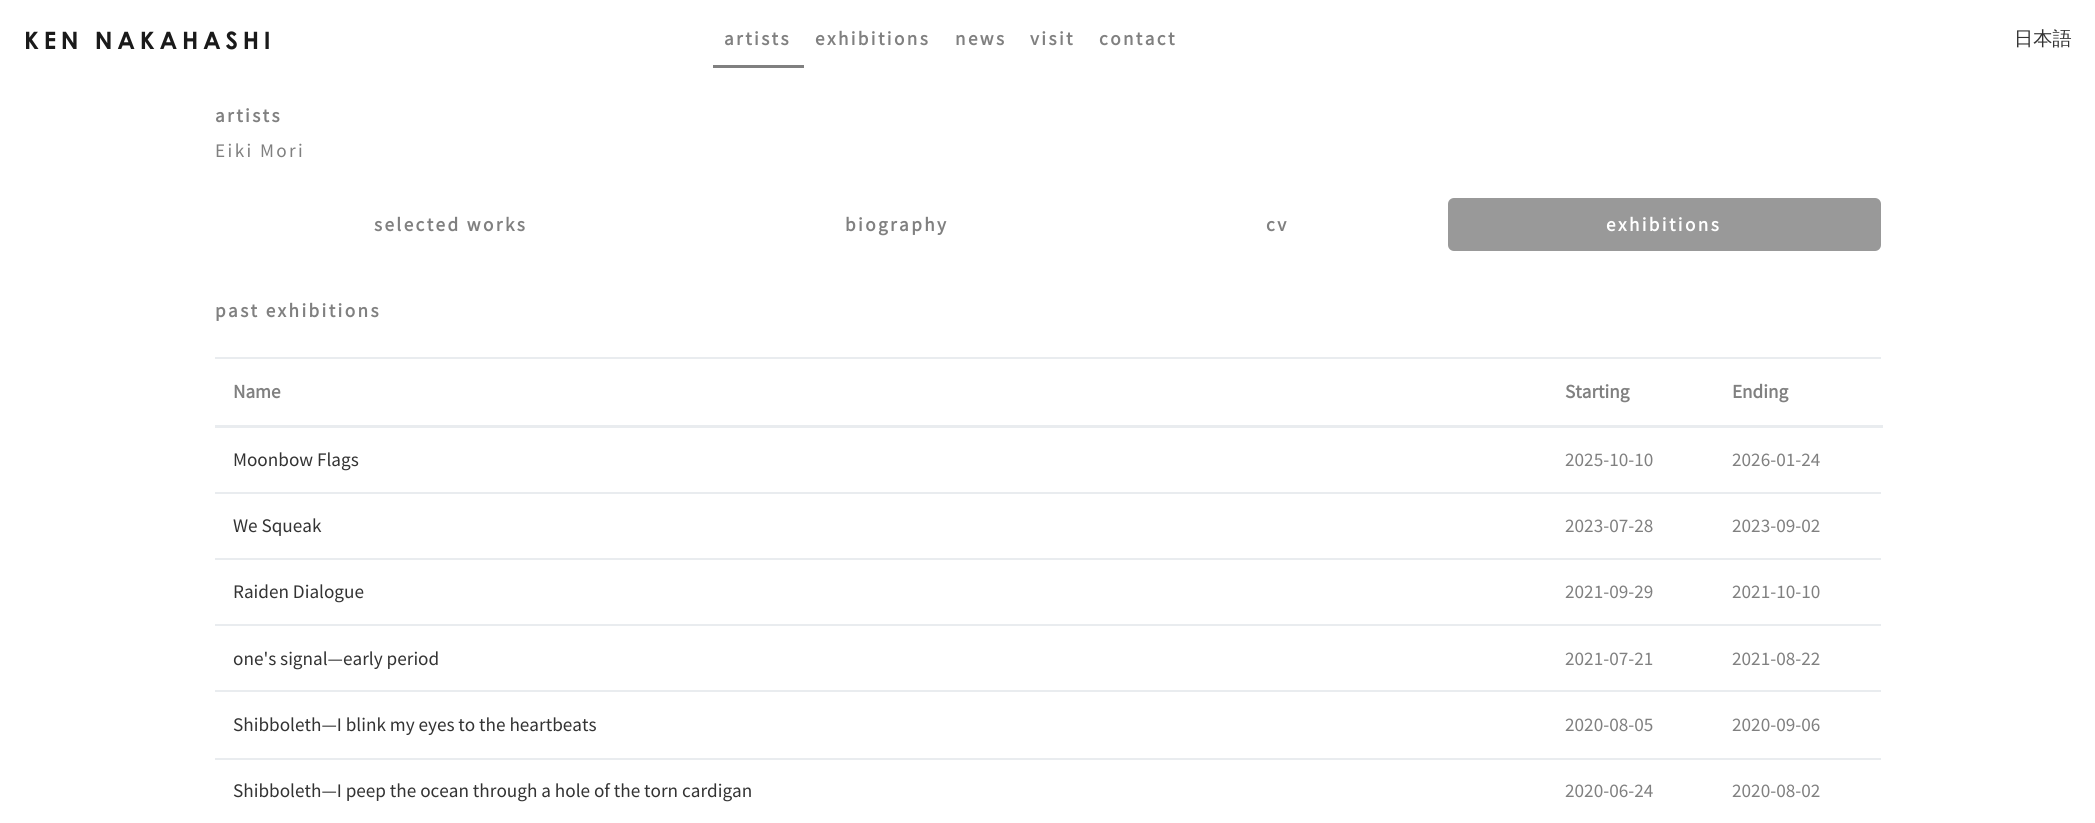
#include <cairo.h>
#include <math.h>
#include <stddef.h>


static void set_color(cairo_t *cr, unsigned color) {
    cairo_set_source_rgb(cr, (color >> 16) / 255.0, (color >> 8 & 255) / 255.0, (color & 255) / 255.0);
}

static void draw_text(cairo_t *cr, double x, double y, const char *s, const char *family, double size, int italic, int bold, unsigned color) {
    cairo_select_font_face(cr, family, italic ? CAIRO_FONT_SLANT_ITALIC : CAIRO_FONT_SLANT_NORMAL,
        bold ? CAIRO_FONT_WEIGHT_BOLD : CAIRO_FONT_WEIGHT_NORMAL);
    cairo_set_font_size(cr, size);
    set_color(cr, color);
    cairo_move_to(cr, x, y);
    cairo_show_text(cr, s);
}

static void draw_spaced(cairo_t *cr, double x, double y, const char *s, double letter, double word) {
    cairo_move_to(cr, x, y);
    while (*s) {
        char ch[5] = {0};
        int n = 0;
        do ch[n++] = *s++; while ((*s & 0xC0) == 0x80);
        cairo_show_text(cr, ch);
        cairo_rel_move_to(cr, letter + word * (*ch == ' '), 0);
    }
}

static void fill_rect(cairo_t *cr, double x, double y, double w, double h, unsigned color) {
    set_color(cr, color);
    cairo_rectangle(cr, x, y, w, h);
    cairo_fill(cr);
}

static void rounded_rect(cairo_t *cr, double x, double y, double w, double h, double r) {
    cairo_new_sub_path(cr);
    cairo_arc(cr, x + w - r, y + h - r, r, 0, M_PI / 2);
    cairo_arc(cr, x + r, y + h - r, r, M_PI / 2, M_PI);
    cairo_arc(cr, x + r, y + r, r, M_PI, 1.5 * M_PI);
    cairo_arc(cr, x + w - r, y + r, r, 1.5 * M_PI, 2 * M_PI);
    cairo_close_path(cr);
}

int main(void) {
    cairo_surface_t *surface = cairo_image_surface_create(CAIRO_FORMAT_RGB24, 2095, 823);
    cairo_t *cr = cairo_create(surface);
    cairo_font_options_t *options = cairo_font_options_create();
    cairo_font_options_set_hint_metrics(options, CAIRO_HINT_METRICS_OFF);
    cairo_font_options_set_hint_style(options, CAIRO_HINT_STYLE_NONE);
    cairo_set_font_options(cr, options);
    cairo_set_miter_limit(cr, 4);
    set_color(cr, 0xFFFFFF);
    cairo_paint(cr);
    cairo_select_font_face(cr, "Century Gothic", CAIRO_FONT_SLANT_NORMAL, CAIRO_FONT_WEIGHT_BOLD);
    cairo_set_font_size(cr, 24);
    set_color(cr, 0x1A1A1A);
    draw_spaced(cr, 24, 49, "KEN NAKAHASHI", 4.75, 0);
    fill_rect(cr, 713, 65, 91, 3, 0x808080);
    cairo_select_font_face(cr, "Source Sans Pro", CAIRO_FONT_SLANT_NORMAL, CAIRO_FONT_WEIGHT_BOLD);
    cairo_set_font_size(cr, 19.2);
    draw_spaced(cr, 724, 45, "artists", 2.4, 0);
    draw_spaced(cr, 815, 45, "exhibitions", 2.4, 0);
    draw_spaced(cr, 955, 45, "news", 2.4, 0);
    draw_spaced(cr, 1030, 45, "visit", 2.4, 0);
    draw_spaced(cr, 1099, 45, "contact", 2.4, 0);
    draw_text(cr, 2014, 45, "日本語", "WenQuanYi Zen Hei Medium", 19.2, 0, 0, 0x333333);
    cairo_select_font_face(cr, "Source Sans Pro", CAIRO_FONT_SLANT_NORMAL, CAIRO_FONT_WEIGHT_BOLD);
    set_color(cr, 0x808080);
    draw_spaced(cr, 215, 122, "artists", 2.4, 0);
    cairo_select_font_face(cr, "Source Sans Pro", CAIRO_FONT_SLANT_NORMAL, CAIRO_FONT_WEIGHT_NORMAL);
    draw_spaced(cr, 215, 157, "Eiki Mori", 2.4, 0);
    cairo_select_font_face(cr, "Source Sans Pro", CAIRO_FONT_SLANT_NORMAL, CAIRO_FONT_WEIGHT_BOLD);
    draw_spaced(cr, 374, 231, "selected works", 2.4, 0);
    draw_spaced(cr, 845, 231, "biography", 2.4, 0);
    draw_spaced(cr, 1266, 231, "cv", 2.4, 0);
    set_color(cr, 0x999999);
    rounded_rect(cr, 1448, 198, 433, 53, 6);
    cairo_fill(cr);
    set_color(cr, 0xFFFFFF);
    draw_spaced(cr, 1606, 231, "exhibitions", 2.4, 0);
    set_color(cr, 0x808080);
    draw_spaced(cr, 215, 317, "past exhibitions", 2.4, 0);
    draw_text(cr, 233, 398, "Name", "Source Sans Pro", 19.2, 0, 1, 0x808080);
    draw_text(cr, 1565, 398, "Starting", "Source Sans Pro", 19.2, 0, 1, 0x808080);
    fill_rect(cr, 215, 357, 1666, 2, 0xE9ECEF);
    fill_rect(cr, 215, 425, 1668, 3, 0xE9ECEF);
    draw_text(cr, 1732, 398, "Ending", "Source Sans Pro", 19.2, 0, 1, 0x808080);
    draw_text(cr, 233, 466, "Moonbow Flags", "Source Sans Pro", 19.2, 0, 0, 0x333333);
    draw_text(cr, 1565, 466, "2025-10-10", "Source Sans Pro", 19.2, 0, 0, 0x808080);
    draw_text(cr, 1732, 466, "2026-01-24", "Source Sans Pro", 19.2, 0, 0, 0x808080);
    draw_text(cr, 233, 532, "We Squeak", "Source Sans Pro", 19.2, 0, 0, 0x333333);
    draw_text(cr, 1565, 532, "2023-07-28", "Source Sans Pro", 19.2, 0, 0, 0x808080);
    fill_rect(cr, 215, 492, 1666, 2, 0xE9ECEF);
    draw_text(cr, 1732, 532, "2023-09-02", "Source Sans Pro", 19.2, 0, 0, 0x808080);
    draw_text(cr, 233, 598, "Raiden Dialogue", "Source Sans Pro", 19.2, 0, 0, 0x333333);
    draw_text(cr, 1565, 598, "2021-09-29", "Source Sans Pro", 19.2, 0, 0, 0x808080);
    fill_rect(cr, 215, 558, 1666, 2, 0xE9ECEF);
    draw_text(cr, 1732, 598, "2021-10-10", "Source Sans Pro", 19.2, 0, 0, 0x808080);
    draw_text(cr, 233, 665, "one's signal—early period", "Source Sans Pro", 19.2, 0, 0, 0x333333);
    draw_text(cr, 1565, 665, "2021-07-21", "Source Sans Pro", 19.2, 0, 0, 0x808080);
    fill_rect(cr, 215, 624, 1666, 2, 0xE9ECEF);
    draw_text(cr, 1732, 665, "2021-08-22", "Source Sans Pro", 19.2, 0, 0, 0x808080);
    draw_text(cr, 233, 731, "Shibboleth—I blink my eyes to the heartbeats", "Source Sans Pro", 19.2, 0, 0, 0x333333);
    draw_text(cr, 1565, 731, "2020-08-05", "Source Sans Pro", 19.2, 0, 0, 0x808080);
    fill_rect(cr, 215, 690, 1666, 2, 0xE9ECEF);
    draw_text(cr, 1732, 731, "2020-09-06", "Source Sans Pro", 19.2, 0, 0, 0x808080);
    draw_text(cr, 233, 797, "Shibboleth—I peep the ocean through a hole of the torn cardigan", "Source Sans Pro", 19.2, 0, 0, 0x333333);
    draw_text(cr, 1565, 797, "2020-06-24", "Source Sans Pro", 19.2, 0, 0, 0x808080);
    fill_rect(cr, 215, 758, 1666, 2, 0xE9ECEF);
    draw_text(cr, 1732, 797, "2020-08-02", "Source Sans Pro", 19.2, 0, 0, 0x808080);
    cairo_surface_write_to_png(surface, "output.png");
    cairo_font_options_destroy(options);
    cairo_destroy(cr);
    cairo_surface_destroy(surface);
    return 0;
}
